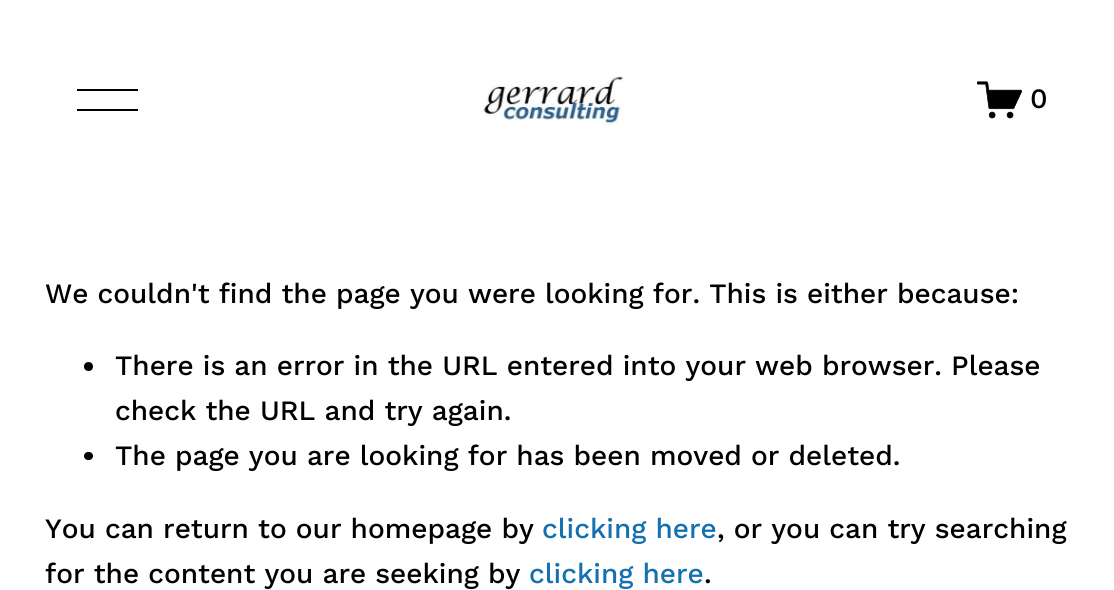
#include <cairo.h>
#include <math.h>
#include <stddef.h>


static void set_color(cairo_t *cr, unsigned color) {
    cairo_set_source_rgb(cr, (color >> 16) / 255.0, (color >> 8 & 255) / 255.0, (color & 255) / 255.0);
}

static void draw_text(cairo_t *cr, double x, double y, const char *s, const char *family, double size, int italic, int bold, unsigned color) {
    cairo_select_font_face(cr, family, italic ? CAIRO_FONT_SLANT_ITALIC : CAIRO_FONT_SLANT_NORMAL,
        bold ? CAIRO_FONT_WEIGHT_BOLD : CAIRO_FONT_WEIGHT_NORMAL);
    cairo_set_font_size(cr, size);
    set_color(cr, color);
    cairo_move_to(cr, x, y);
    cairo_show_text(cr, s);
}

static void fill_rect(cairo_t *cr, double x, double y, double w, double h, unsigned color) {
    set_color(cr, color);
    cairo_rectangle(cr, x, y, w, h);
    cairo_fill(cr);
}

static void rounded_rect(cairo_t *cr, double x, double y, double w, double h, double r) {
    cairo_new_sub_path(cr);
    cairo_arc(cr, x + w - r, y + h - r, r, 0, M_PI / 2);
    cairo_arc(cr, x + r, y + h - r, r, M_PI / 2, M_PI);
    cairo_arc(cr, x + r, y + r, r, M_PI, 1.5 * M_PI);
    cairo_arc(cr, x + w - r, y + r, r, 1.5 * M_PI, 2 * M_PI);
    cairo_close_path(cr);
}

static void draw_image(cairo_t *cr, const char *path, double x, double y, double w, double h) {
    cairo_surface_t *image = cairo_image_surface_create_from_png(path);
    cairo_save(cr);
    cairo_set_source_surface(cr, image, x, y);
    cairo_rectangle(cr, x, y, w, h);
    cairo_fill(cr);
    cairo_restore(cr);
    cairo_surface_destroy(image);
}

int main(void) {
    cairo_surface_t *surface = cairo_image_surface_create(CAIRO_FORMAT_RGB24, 1114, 590);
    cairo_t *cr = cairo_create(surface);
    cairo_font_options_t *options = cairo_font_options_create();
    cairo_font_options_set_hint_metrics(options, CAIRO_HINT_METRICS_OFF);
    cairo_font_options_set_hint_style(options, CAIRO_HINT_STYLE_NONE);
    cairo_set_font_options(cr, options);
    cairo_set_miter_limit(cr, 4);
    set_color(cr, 0xFFFFFF);
    cairo_paint(cr);
    fill_rect(cr, 77, 89, 61, 2, 0x000000);
    fill_rect(cr, 77, 109, 61, 2, 0x000000);
    draw_image(cr, "assets/img1.png", 483, 76, 141, 50);
    draw_image(cr, "assets/img2.png", 977, 81, 45, 38);
    draw_text(cr, 1030, 108, "0", "Work Sans Medium", 28, 0, 0, 0x000000);
    draw_text(cr, 45, 303, "We couldn't find the page you were looking for. This is either because:", "Work Sans Medium", 28, 0, 0, 0x000000);
    cairo_new_path(cr);
    cairo_arc(cr, 88.5, 366.5, 4.5, 0, 2 * M_PI);
    cairo_fill(cr);
    draw_text(cr, 115, 375, "There is an error in the URL entered into your web browser. Please", "Work Sans Medium", 28, 0, 0, 0x000000);
    draw_text(cr, 115, 420, "check the URL and try again.", "Work Sans Medium", 28, 0, 0, 0x000000);
    rounded_rect(cr, 84, 452, 9, 8, 4);
    cairo_fill(cr);
    draw_text(cr, 115, 465, "The page you are looking for has been moved or deleted.", "Work Sans Medium", 28, 0, 0, 0x000000);
    draw_text(cr, 45, 538, "You can return to our homepage by", "Work Sans Medium", 28, 0, 0, 0x000000);
    draw_text(cr, 542, 538, "clicking here", "Work Sans Medium", 28, 0, 0, 0x1470AF);
    draw_text(cr, 717, 538, ", or you can try searching", "Work Sans Medium", 28, 0, 0, 0x000000);
    draw_text(cr, 45, 583, "for the content you are seeking by", "Work Sans Medium", 28, 0, 0, 0x000000);
    draw_text(cr, 529, 583, "clicking here", "Work Sans Medium", 28, 0, 0, 0x1470AF);
    draw_text(cr, 704, 583, ".", "Work Sans Medium", 28, 0, 0, 0x000000);
    cairo_surface_write_to_png(surface, "output.png");
    cairo_font_options_destroy(options);
    cairo_destroy(cr);
    cairo_surface_destroy(surface);
    return 0;
}
